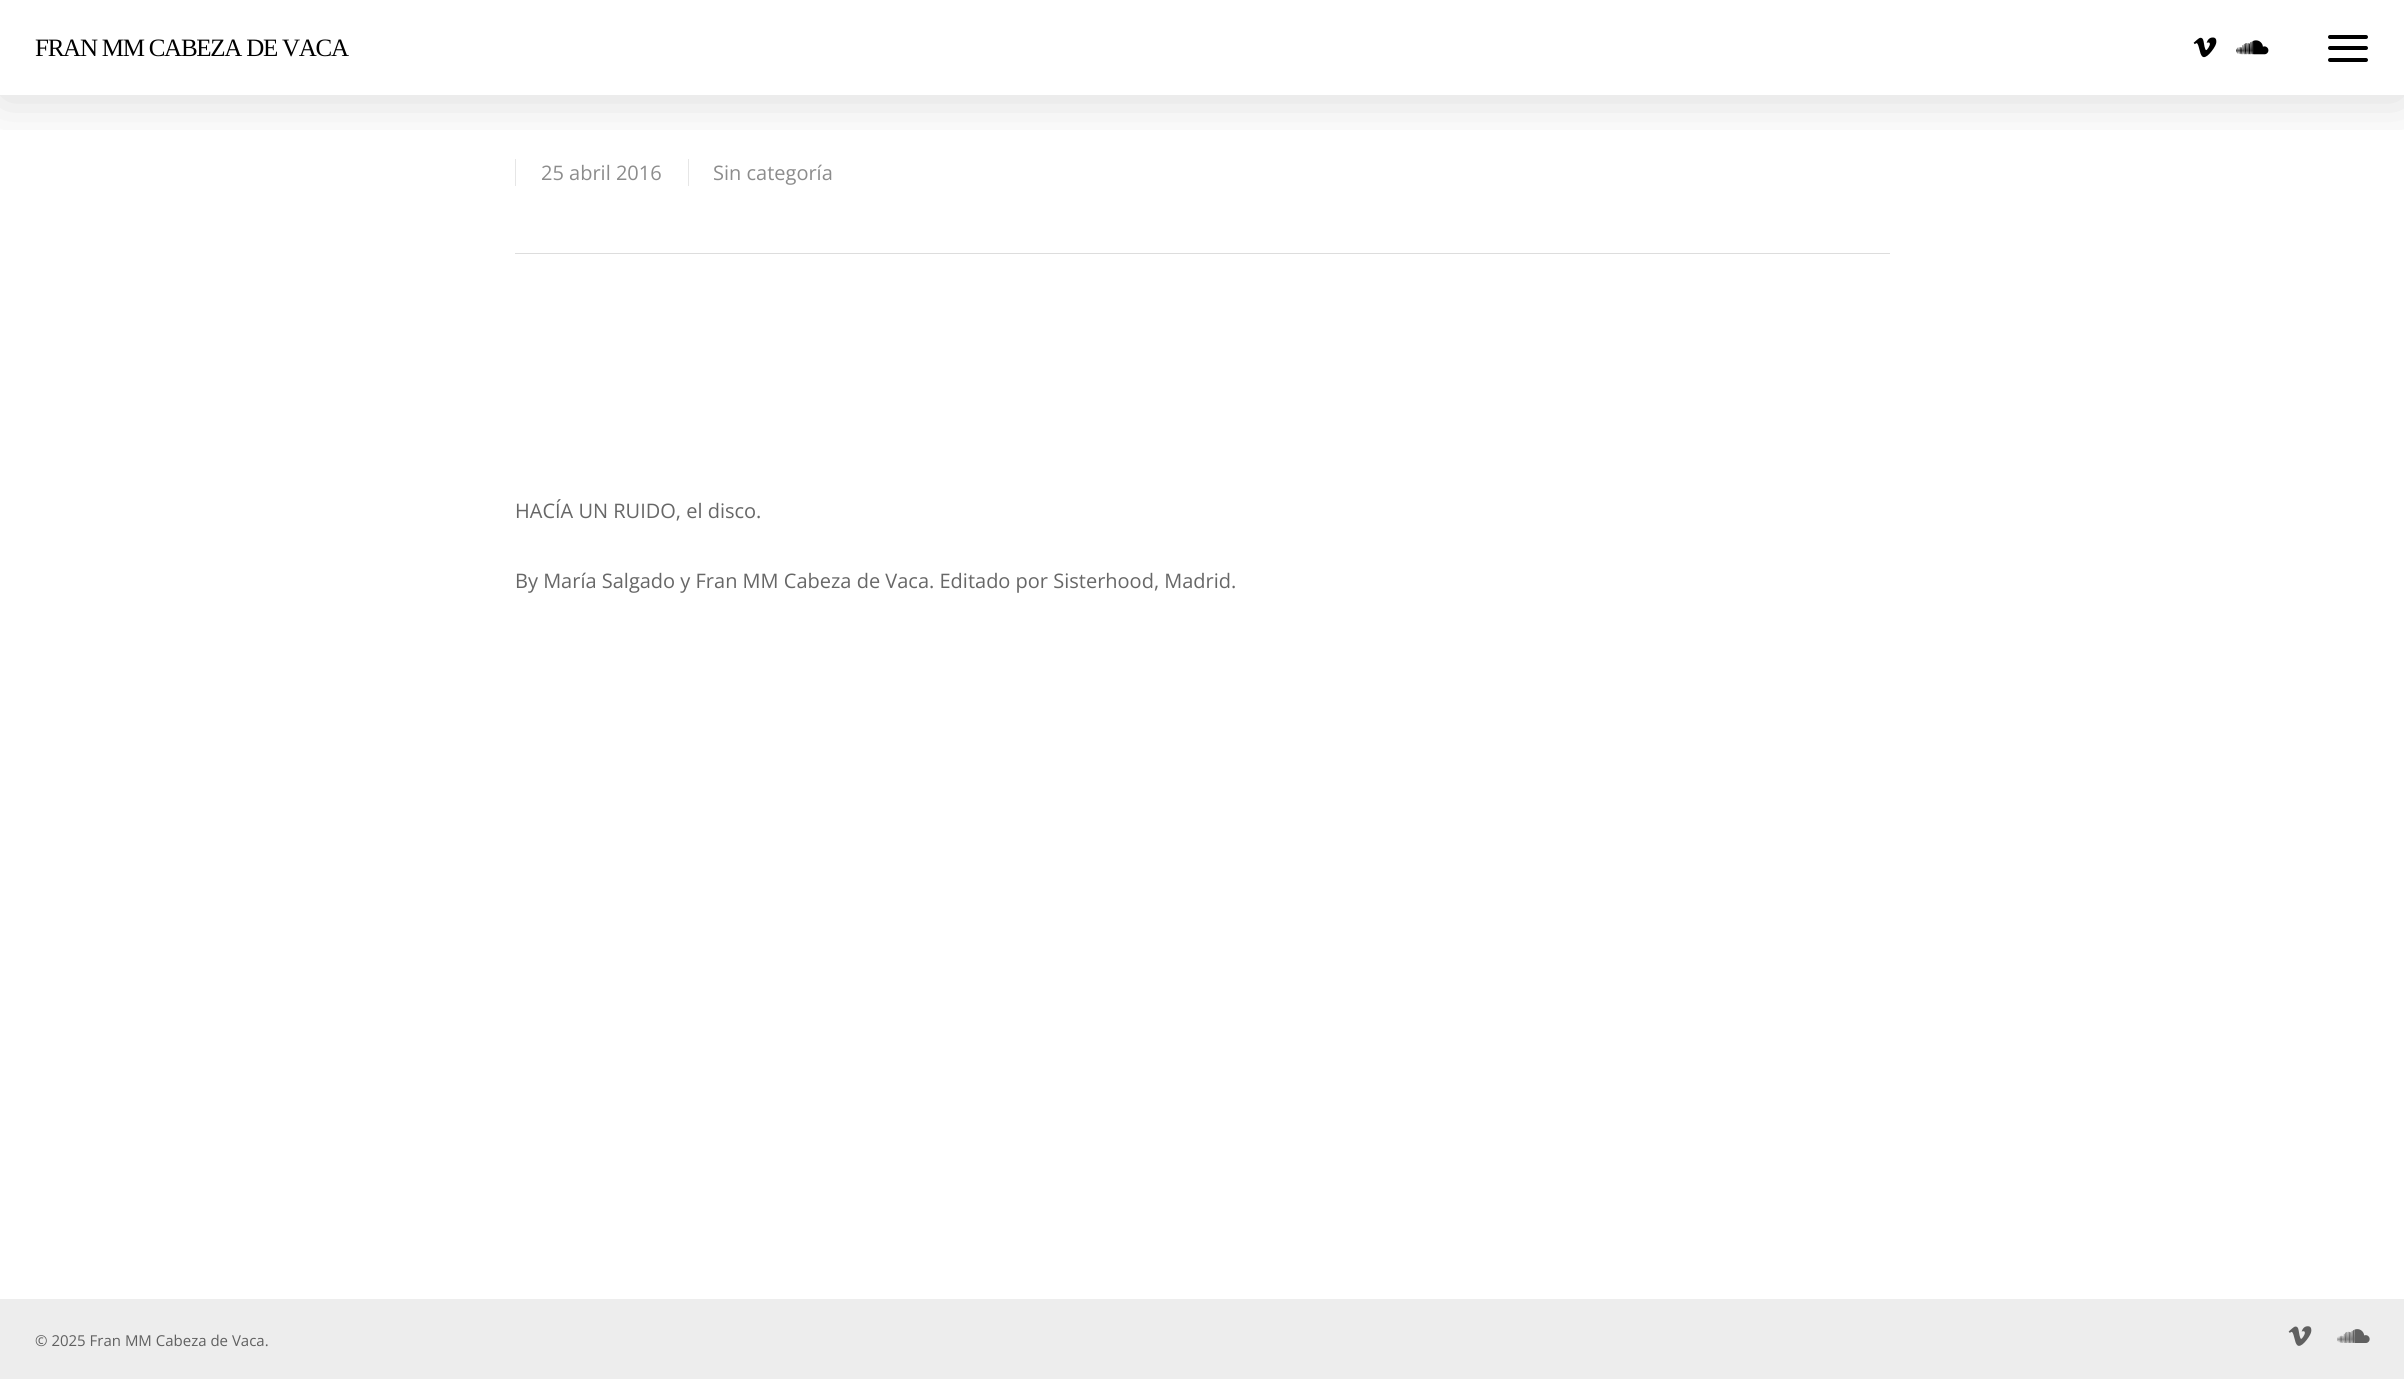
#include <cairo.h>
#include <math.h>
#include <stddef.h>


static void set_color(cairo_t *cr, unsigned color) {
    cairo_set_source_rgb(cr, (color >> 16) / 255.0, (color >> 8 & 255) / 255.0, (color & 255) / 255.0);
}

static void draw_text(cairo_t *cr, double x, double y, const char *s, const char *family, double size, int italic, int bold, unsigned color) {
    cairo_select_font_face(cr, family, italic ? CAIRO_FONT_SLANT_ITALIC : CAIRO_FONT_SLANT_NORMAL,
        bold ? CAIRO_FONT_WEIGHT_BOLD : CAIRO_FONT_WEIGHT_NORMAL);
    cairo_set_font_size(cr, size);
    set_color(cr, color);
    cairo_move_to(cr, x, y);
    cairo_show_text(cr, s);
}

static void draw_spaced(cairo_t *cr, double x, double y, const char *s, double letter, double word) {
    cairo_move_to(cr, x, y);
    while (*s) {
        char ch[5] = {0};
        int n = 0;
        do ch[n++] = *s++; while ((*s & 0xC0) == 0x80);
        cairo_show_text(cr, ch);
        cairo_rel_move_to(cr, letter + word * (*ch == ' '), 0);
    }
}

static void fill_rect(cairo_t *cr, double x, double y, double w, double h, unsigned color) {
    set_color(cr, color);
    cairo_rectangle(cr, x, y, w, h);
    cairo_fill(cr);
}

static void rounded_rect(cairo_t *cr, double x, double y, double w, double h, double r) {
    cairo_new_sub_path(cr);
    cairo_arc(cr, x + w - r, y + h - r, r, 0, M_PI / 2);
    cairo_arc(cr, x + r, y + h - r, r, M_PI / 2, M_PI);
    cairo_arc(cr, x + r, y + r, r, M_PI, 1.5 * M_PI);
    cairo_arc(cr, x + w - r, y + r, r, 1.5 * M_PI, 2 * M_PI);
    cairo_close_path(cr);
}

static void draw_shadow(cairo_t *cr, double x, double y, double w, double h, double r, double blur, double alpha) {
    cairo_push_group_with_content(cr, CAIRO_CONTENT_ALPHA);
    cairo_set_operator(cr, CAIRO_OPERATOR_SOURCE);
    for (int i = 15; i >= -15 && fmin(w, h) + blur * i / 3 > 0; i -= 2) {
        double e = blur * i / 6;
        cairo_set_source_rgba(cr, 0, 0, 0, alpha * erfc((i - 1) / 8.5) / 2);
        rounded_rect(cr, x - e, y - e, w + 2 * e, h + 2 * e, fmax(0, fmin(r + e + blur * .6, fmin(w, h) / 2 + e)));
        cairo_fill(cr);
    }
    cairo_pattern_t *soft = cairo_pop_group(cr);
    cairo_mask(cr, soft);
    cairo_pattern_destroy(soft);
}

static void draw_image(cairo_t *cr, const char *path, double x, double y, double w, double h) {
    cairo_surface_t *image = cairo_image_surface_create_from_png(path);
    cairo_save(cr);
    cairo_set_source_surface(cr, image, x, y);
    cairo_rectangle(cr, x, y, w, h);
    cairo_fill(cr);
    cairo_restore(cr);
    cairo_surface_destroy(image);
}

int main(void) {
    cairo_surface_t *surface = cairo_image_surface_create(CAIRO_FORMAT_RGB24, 2404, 1379);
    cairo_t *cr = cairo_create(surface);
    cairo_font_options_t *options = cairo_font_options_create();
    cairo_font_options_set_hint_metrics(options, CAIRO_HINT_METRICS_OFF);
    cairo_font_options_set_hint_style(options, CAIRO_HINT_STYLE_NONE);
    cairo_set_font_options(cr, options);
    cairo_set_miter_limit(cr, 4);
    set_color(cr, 0xFFFFFF);
    cairo_paint(cr);
    fill_rect(cr, 515, 159, 1, 27, 0xE6E6E6);
    fill_rect(cr, 688, 159, 1, 27, 0xE6E6E6);
    cairo_save(cr);
    cairo_rectangle(cr, 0, 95, 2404, 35);
    cairo_clip(cr);
    set_color(cr, 0x000000);
    draw_shadow(cr, 0, 4, 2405, 95, 0, 28, 0.15);
    cairo_restore(cr);
    cairo_select_font_face(cr, "Liberation Serif", CAIRO_FONT_SLANT_NORMAL, CAIRO_FONT_WEIGHT_NORMAL);
    cairo_set_font_size(cr, 25);
    set_color(cr, 0x000000);
    draw_spaced(cr, 35, 56, "FRAN MM CABEZA DE VACA", -1.25, 0);
    draw_image(cr, "assets/img1.png", 2193, 37, 24, 21);
    draw_image(cr, "assets/img2.png", 2236, 40, 33, 15);
    rounded_rect(cr, 2328, 35, 40, 4, 2);
    cairo_fill(cr);
    rounded_rect(cr, 2328, 58, 40, 4, 2);
    cairo_fill(cr);
    rounded_rect(cr, 2328, 46, 40, 4, 2);
    cairo_fill(cr);
    fill_rect(cr, 515, 253, 1375, 1, 0xDDDDDD);
    draw_text(cr, 541, 180, "25 abril 2016", "Open Sans", 20, 0, 0, 0x8C8C8C);
    draw_text(cr, 713, 180, "Sin categoría", "Open Sans", 20, 0, 0, 0x8C8C8C);
    draw_text(cr, 515, 518, "HACÍA UN RUIDO, el disco.", "Open Sans", 20, 0, 0, 0x676767);
    draw_text(cr, 515, 588, "By María Salgado y Fran MM Cabeza de Vaca. Editado por Sisterhood, Madrid.", "Open Sans", 20, 0, 0, 0x676767);
    fill_rect(cr, 0, 1299, 2404, 80, 0xEDEDED);
    draw_text(cr, 35, 1346, "© 2025 Fran MM Cabeza de Vaca.", "Open Sans", 15, 0, 0, 0x606060);
    draw_image(cr, "assets/img3.png", 2288, 1326, 24, 20);
    draw_image(cr, "assets/img4.png", 2337, 1329, 33, 14);
    cairo_surface_write_to_png(surface, "output.png");
    cairo_font_options_destroy(options);
    cairo_destroy(cr);
    cairo_surface_destroy(surface);
    return 0;
}
